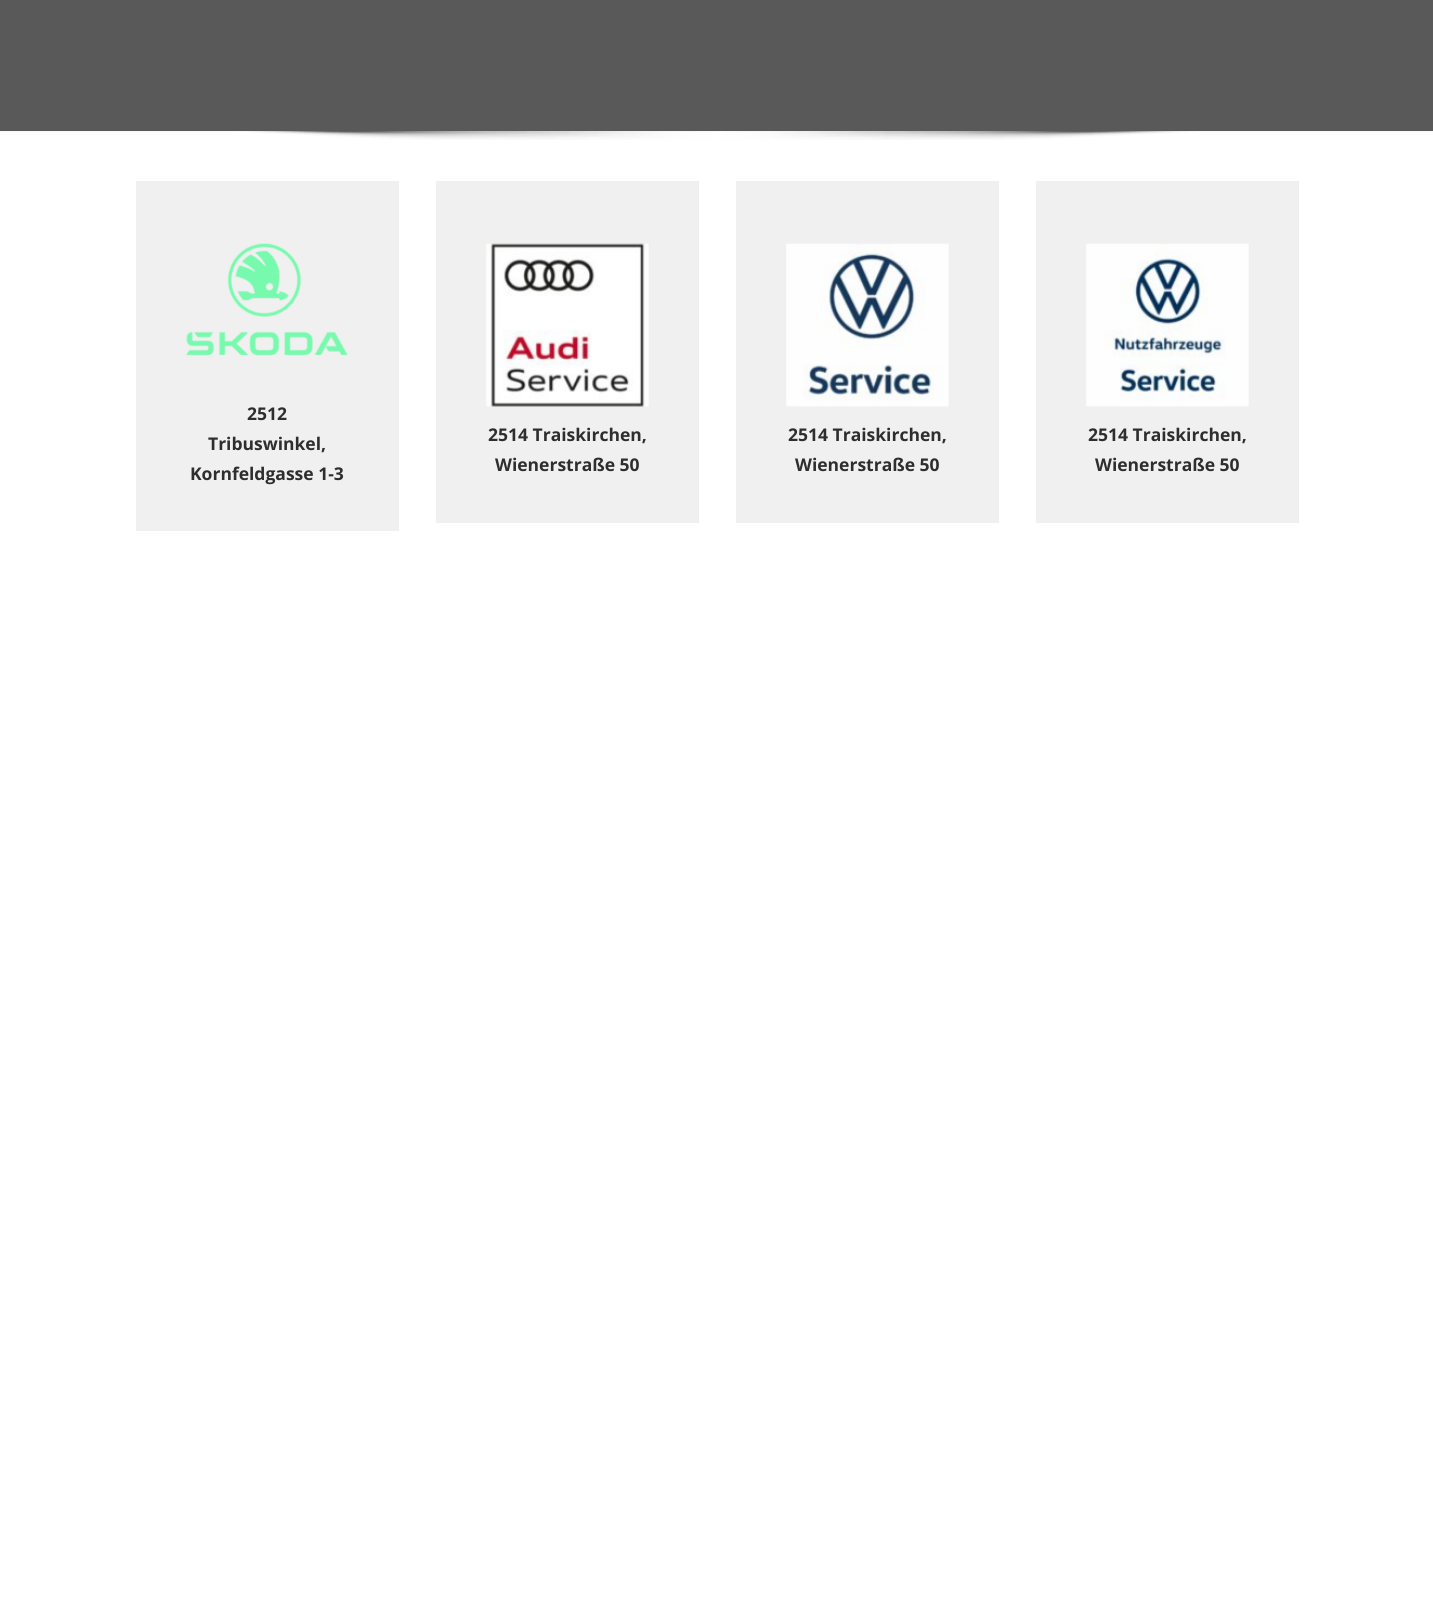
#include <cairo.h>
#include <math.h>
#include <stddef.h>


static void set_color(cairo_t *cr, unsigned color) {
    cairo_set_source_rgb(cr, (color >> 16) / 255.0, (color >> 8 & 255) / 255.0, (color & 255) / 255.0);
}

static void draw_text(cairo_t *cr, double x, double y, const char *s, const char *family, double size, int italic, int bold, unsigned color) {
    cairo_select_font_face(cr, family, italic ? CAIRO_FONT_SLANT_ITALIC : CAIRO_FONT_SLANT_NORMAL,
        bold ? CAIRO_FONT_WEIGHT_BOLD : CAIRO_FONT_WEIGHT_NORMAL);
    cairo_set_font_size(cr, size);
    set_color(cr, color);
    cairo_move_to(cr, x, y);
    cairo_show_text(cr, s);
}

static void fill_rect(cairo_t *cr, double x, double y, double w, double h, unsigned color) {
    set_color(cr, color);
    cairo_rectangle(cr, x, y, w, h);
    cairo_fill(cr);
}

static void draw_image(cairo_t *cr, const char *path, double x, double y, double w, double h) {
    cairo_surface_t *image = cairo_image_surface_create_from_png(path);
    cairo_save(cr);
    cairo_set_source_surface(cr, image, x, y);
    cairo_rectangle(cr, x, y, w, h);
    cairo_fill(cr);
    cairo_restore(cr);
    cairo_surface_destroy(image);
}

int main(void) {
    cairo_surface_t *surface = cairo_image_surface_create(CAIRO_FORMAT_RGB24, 1433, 1614);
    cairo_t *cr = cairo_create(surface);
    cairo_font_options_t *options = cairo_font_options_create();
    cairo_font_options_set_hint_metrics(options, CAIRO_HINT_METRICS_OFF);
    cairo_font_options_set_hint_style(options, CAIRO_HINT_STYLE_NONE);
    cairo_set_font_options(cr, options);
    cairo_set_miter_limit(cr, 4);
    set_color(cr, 0xFFFFFF);
    cairo_paint(cr);
    fill_rect(cr, 0, 0, 1433, 131, 0x595959);
    draw_image(cr, "assets/img1.png", 1, 131, 1432, 9);
    fill_rect(cr, 136, 181, 263, 350, 0xF0F0F0);
    draw_image(cr, "assets/img2.png", 186, 243, 162, 113);
    draw_text(cr, 247, 420, "2512", "Open Sans", 17.5, 0, 1, 0x2E2E2E);
    draw_text(cr, 208, 450, "Tribuswinkel,", "Open Sans", 17.5, 0, 1, 0x2E2E2E);
    draw_text(cr, 190, 480, "Kornfeldgasse 1-3", "Open Sans", 17.5, 0, 1, 0x2E2E2E);
    fill_rect(cr, 436, 181, 263, 342, 0xF0F0F0);
    draw_image(cr, "assets/img3.png", 486, 243, 163, 164);
    draw_text(cr, 488, 441, "2514 Traiskirchen,", "Open Sans", 17.5, 0, 1, 0x2E2E2E);
    draw_text(cr, 495, 471, "Wienerstraße 50", "Open Sans", 17.5, 0, 1, 0x2E2E2E);
    fill_rect(cr, 736, 181, 263, 342, 0xF0F0F0);
    draw_image(cr, "assets/img4.png", 786, 243, 163, 164);
    draw_text(cr, 788, 441, "2514 Traiskirchen,", "Open Sans", 17.5, 0, 1, 0x2E2E2E);
    draw_text(cr, 795, 471, "Wienerstraße 50", "Open Sans", 17.5, 0, 1, 0x2E2E2E);
    fill_rect(cr, 1036, 181, 263, 342, 0xF0F0F0);
    draw_image(cr, "assets/img5.png", 1086, 243, 163, 164);
    draw_text(cr, 1088, 441, "2514 Traiskirchen,", "Open Sans", 17.5, 0, 1, 0x2E2E2E);
    draw_text(cr, 1095, 471, "Wienerstraße 50", "Open Sans", 17.5, 0, 1, 0x2E2E2E);
    cairo_surface_write_to_png(surface, "output.png");
    cairo_font_options_destroy(options);
    cairo_destroy(cr);
    cairo_surface_destroy(surface);
    return 0;
}
